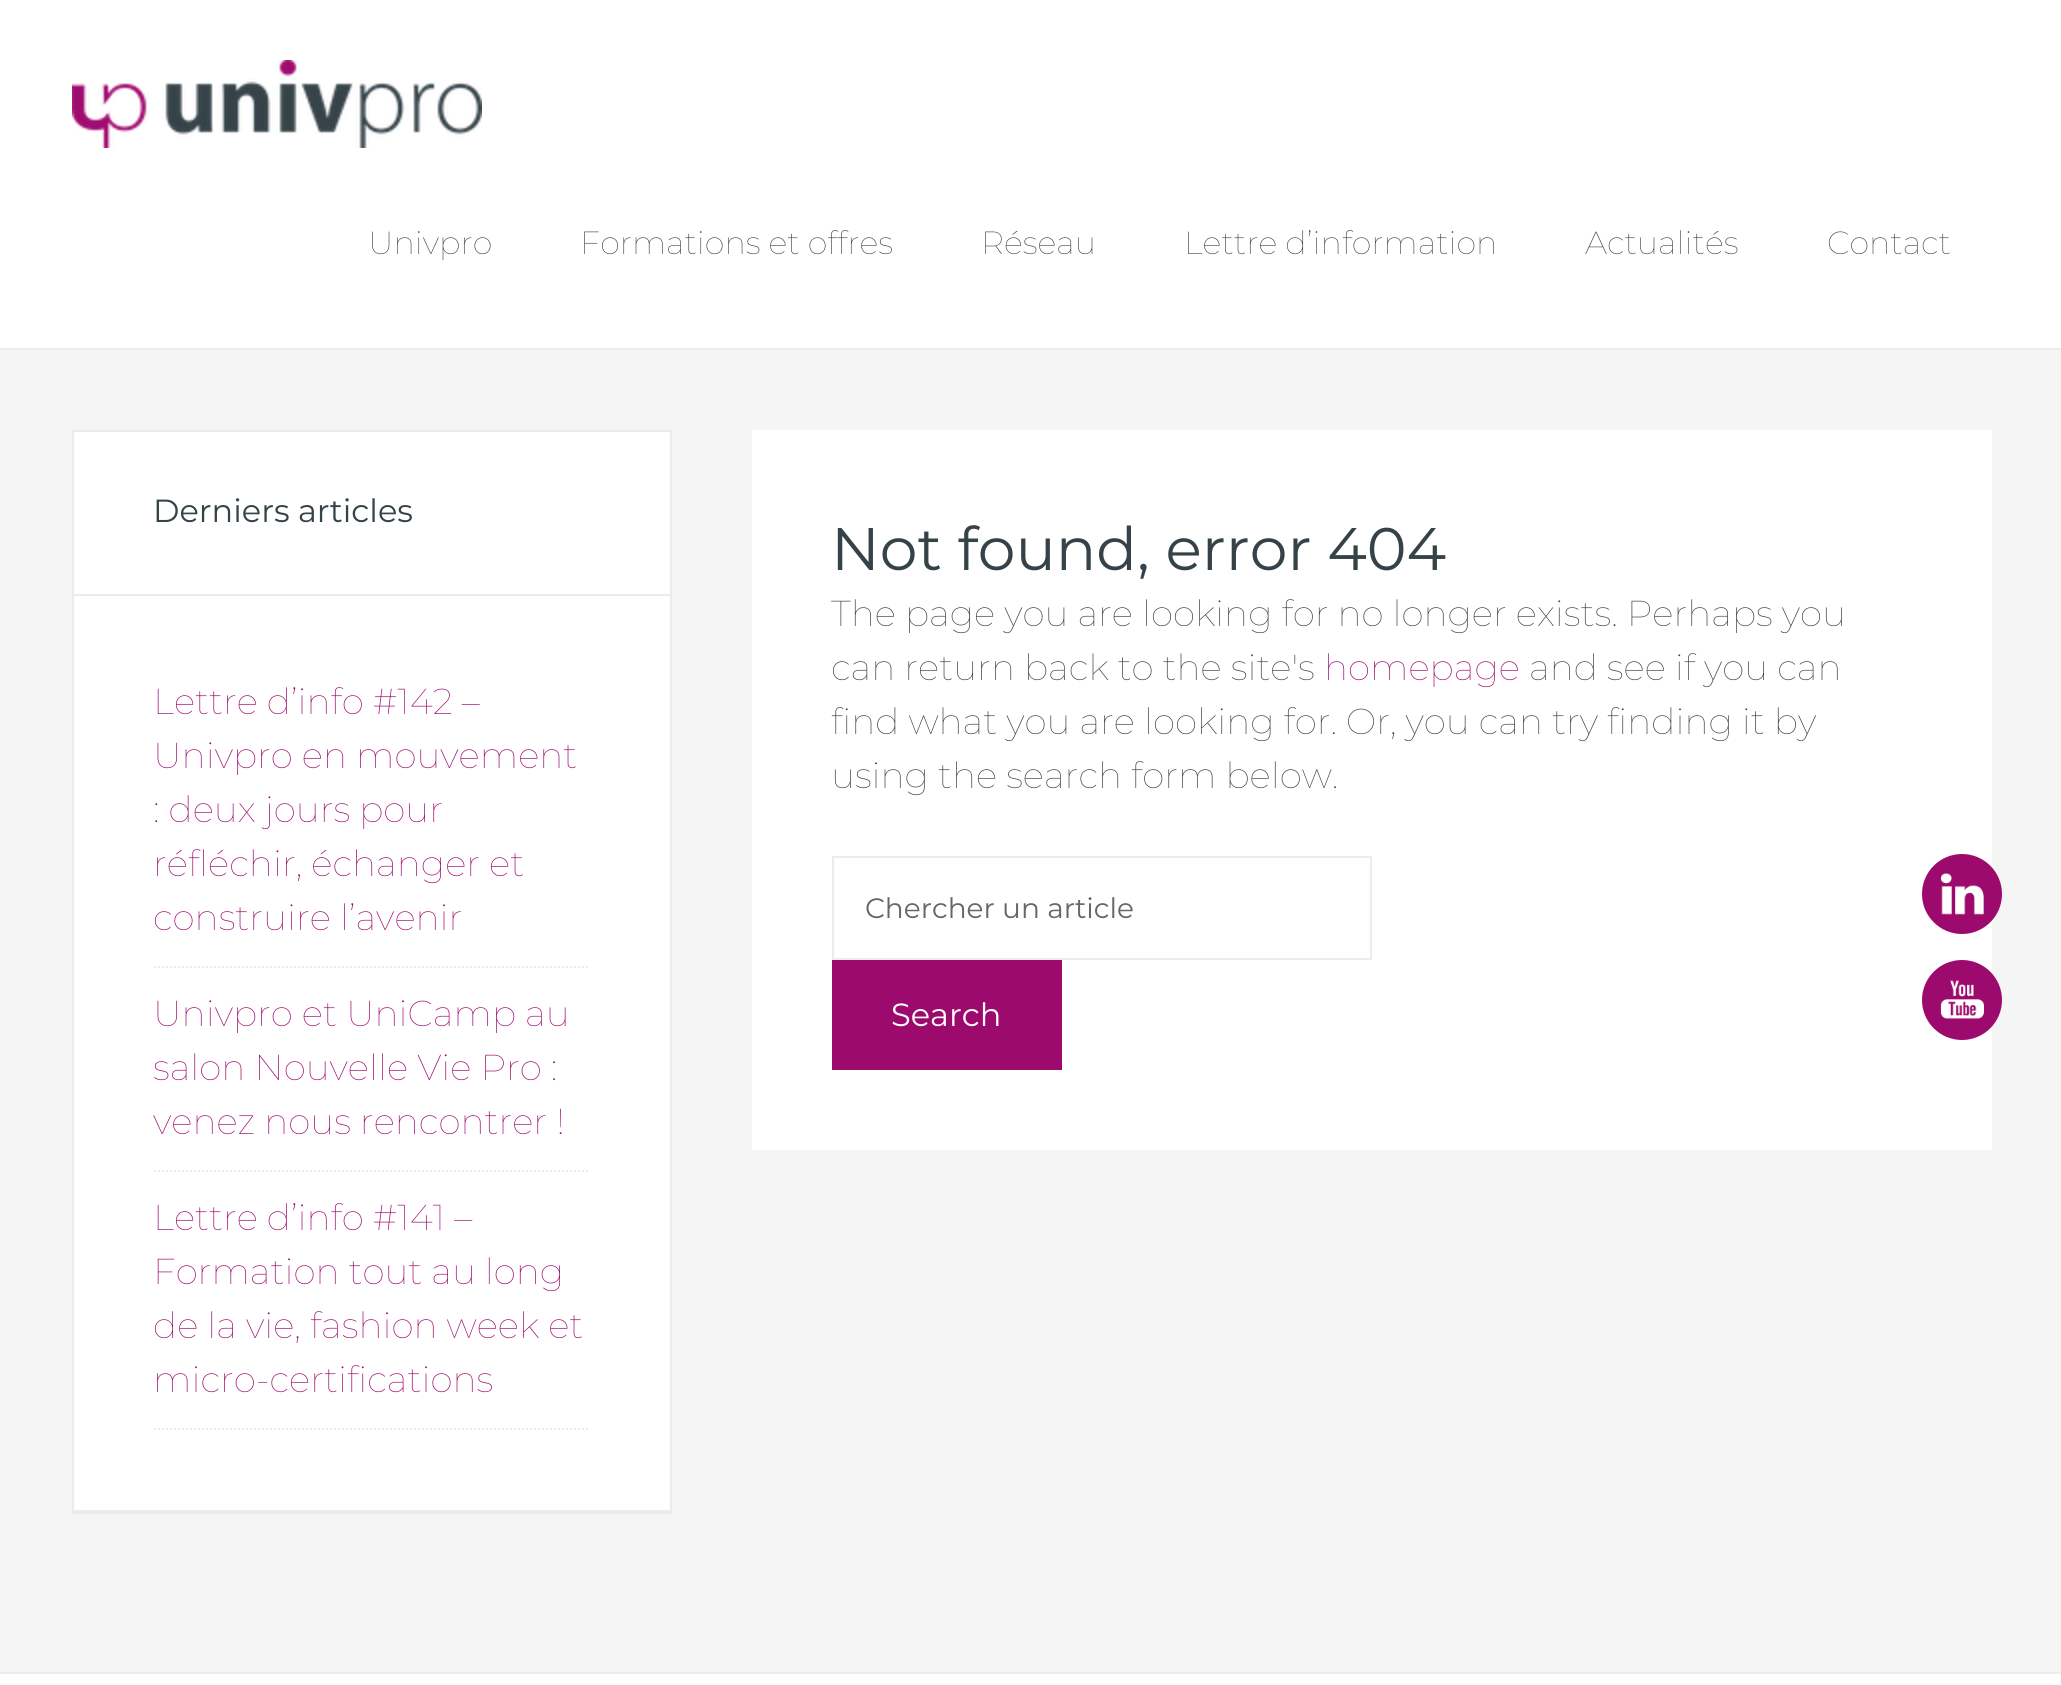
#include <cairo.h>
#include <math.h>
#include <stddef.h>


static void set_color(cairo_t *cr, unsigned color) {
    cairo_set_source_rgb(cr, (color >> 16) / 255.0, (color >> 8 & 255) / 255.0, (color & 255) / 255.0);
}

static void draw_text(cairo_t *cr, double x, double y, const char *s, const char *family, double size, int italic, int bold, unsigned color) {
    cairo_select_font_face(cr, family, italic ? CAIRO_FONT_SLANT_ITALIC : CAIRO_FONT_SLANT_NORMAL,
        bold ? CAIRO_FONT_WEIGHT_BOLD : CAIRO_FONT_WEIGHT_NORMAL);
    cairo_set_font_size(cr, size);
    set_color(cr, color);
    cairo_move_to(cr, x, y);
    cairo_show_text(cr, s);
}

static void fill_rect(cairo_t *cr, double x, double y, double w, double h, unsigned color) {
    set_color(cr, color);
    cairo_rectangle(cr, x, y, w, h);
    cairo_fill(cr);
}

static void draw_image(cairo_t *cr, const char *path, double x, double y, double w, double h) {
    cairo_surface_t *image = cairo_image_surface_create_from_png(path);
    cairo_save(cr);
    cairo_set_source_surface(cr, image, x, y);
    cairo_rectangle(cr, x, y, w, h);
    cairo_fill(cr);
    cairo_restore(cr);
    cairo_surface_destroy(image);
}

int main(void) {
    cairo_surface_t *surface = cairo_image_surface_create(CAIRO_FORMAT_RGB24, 2061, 1685);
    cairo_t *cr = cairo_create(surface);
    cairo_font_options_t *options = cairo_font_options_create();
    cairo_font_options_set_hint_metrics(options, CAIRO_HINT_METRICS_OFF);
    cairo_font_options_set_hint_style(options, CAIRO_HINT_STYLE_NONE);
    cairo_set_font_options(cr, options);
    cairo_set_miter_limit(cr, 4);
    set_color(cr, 0xFFFFFF);
    cairo_paint(cr);
    draw_image(cr, "assets/img1.png", 72, 60, 410, 88);
    draw_text(cr, 368, 254, "Univpro", "Montserrat Thin", 32, 0, 0, 0x354248);
    draw_text(cr, 580, 254, "Formations et offres", "Montserrat Thin", 32, 0, 0, 0x354248);
    draw_text(cr, 981, 254, "Réseau", "Montserrat Thin", 32, 0, 0, 0x354248);
    draw_text(cr, 1184, 254, "Lettre d’information", "Montserrat Thin", 32, 0, 0, 0x354248);
    draw_text(cr, 1585, 254, "Actualités", "Montserrat Thin", 32, 0, 0, 0x354248);
    draw_text(cr, 1827, 254, "Contact", "Montserrat Thin", 32, 0, 0, 0x354248);
    fill_rect(cr, 0, 350, 2061, 1322, 0xF5F5F5);
    fill_rect(cr, 0, 348, 2061, 2, 0xECECEC);
    fill_rect(cr, 72, 1512, 600, 2, 0xECECEC);
    set_color(cr, 0xFFFFFF);
    cairo_rectangle(cr, 73, 431, 598, 1080);
    cairo_fill_preserve(cr);
    set_color(cr, 0xECECEC);
    cairo_stroke(cr);
    fill_rect(cr, 74, 594, 596, 2, 0xECECEC);
    draw_text(cr, 153, 522, "Derniers articles", "Montserrat", 32, 0, 0, 0x354248);
    cairo_new_path(cr);
    cairo_move_to(cr, 154, 967);
    cairo_line_to(cr, 590, 967);
    set_color(cr, 0xECECEC);
    cairo_set_dash(cr, (double[]){2, 2}, 2, 0);
    cairo_stroke(cr);
    draw_text(cr, 153, 714, "Lettre d’info #142 –", "Montserrat Thin", 36, 0, 0, 0x9D0A6D);
    draw_text(cr, 153, 768, "Univpro en mouvement", "Montserrat Thin", 36, 0, 0, 0x9D0A6D);
    draw_text(cr, 153, 822, ": deux jours pour", "Montserrat Thin", 36, 0, 0, 0x9D0A6D);
    draw_text(cr, 153, 876, "réfléchir, échanger et", "Montserrat Thin", 36, 0, 0, 0x9D0A6D);
    draw_text(cr, 153, 930, "construire l’avenir", "Montserrat Thin", 36, 0, 0, 0x9D0A6D);
    cairo_new_path(cr);
    cairo_move_to(cr, 154, 1171);
    cairo_line_to(cr, 590, 1171);
    set_color(cr, 0xECECEC);
    cairo_stroke(cr);
    draw_text(cr, 153, 1026, "Univpro et UniCamp au", "Montserrat Thin", 36, 0, 0, 0x9D0A6D);
    draw_text(cr, 153, 1080, "salon Nouvelle Vie Pro :", "Montserrat Thin", 36, 0, 0, 0x9D0A6D);
    draw_text(cr, 153, 1134, "venez nous rencontrer !", "Montserrat Thin", 36, 0, 0, 0x9D0A6D);
    cairo_new_path(cr);
    cairo_move_to(cr, 154, 1429);
    cairo_line_to(cr, 590, 1429);
    set_color(cr, 0xECECEC);
    cairo_stroke(cr);
    draw_text(cr, 153, 1230, "Lettre d’info #141 –", "Montserrat Thin", 36, 0, 0, 0x9D0A6D);
    draw_text(cr, 153, 1284, "Formation tout au long", "Montserrat Thin", 36, 0, 0, 0x9D0A6D);
    draw_text(cr, 153, 1338, "de la vie, fashion week et", "Montserrat Thin", 36, 0, 0, 0x9D0A6D);
    draw_text(cr, 153, 1392, "micro-certifications", "Montserrat Thin", 36, 0, 0, 0x9D0A6D);
    fill_rect(cr, 752, 430, 1240, 720, 0xFFFFFF);
    draw_text(cr, 831, 570, "Not found, error 404", "Montserrat", 60, 0, 0, 0x354248);
    draw_text(cr, 831, 626, "The page you are looking for no longer exists. Perhaps you", "Montserrat Thin", 36, 0, 0, 0x414141);
    draw_text(cr, 831, 680, "can return back to the site's", "Montserrat Thin", 36, 0, 0, 0x414141);
    draw_text(cr, 1324, 680, "homepage", "Montserrat Thin", 36, 0, 0, 0x9D0A6D);
    draw_text(cr, 1529, 680, "and see if you can", "Montserrat Thin", 36, 0, 0, 0x414141);
    draw_text(cr, 831, 734, "find what you are looking for. Or, you can try finding it by", "Montserrat Thin", 36, 0, 0, 0x414141);
    draw_text(cr, 831, 788, "using the search form below.", "Montserrat Thin", 36, 0, 0, 0x414141);
    cairo_rectangle(cr, 833, 857, 538, 102);
    set_color(cr, 0xECECEC);
    cairo_set_dash(cr, NULL, 0, 0);
    cairo_stroke(cr);
    draw_text(cr, 865, 918, "Chercher un article", "Montserrat", 28, 0, 0, 0x666666);
    fill_rect(cr, 832, 960, 230, 110, 0x9D0A6D);
    draw_text(cr, 891, 1026, "Search", "Montserrat", 32, 0, 0, 0xFFFFFF);
    fill_rect(cr, 0, 1672, 2061, 2, 0xECECEC);
    set_color(cr, 0x9D0A6D);
    cairo_new_path(cr);
    cairo_arc(cr, 1962, 894, 40, 0, 2 * M_PI);
    cairo_fill(cr);
    draw_image(cr, "assets/img2.png", 1940, 873, 44, 42);
    cairo_arc(cr, 1962, 1000, 40, 0, 2 * M_PI);
    cairo_fill(cr);
    draw_image(cr, "assets/img3.png", 1940, 980, 44, 39);
    cairo_surface_write_to_png(surface, "output.png");
    cairo_font_options_destroy(options);
    cairo_destroy(cr);
    cairo_surface_destroy(surface);
    return 0;
}
